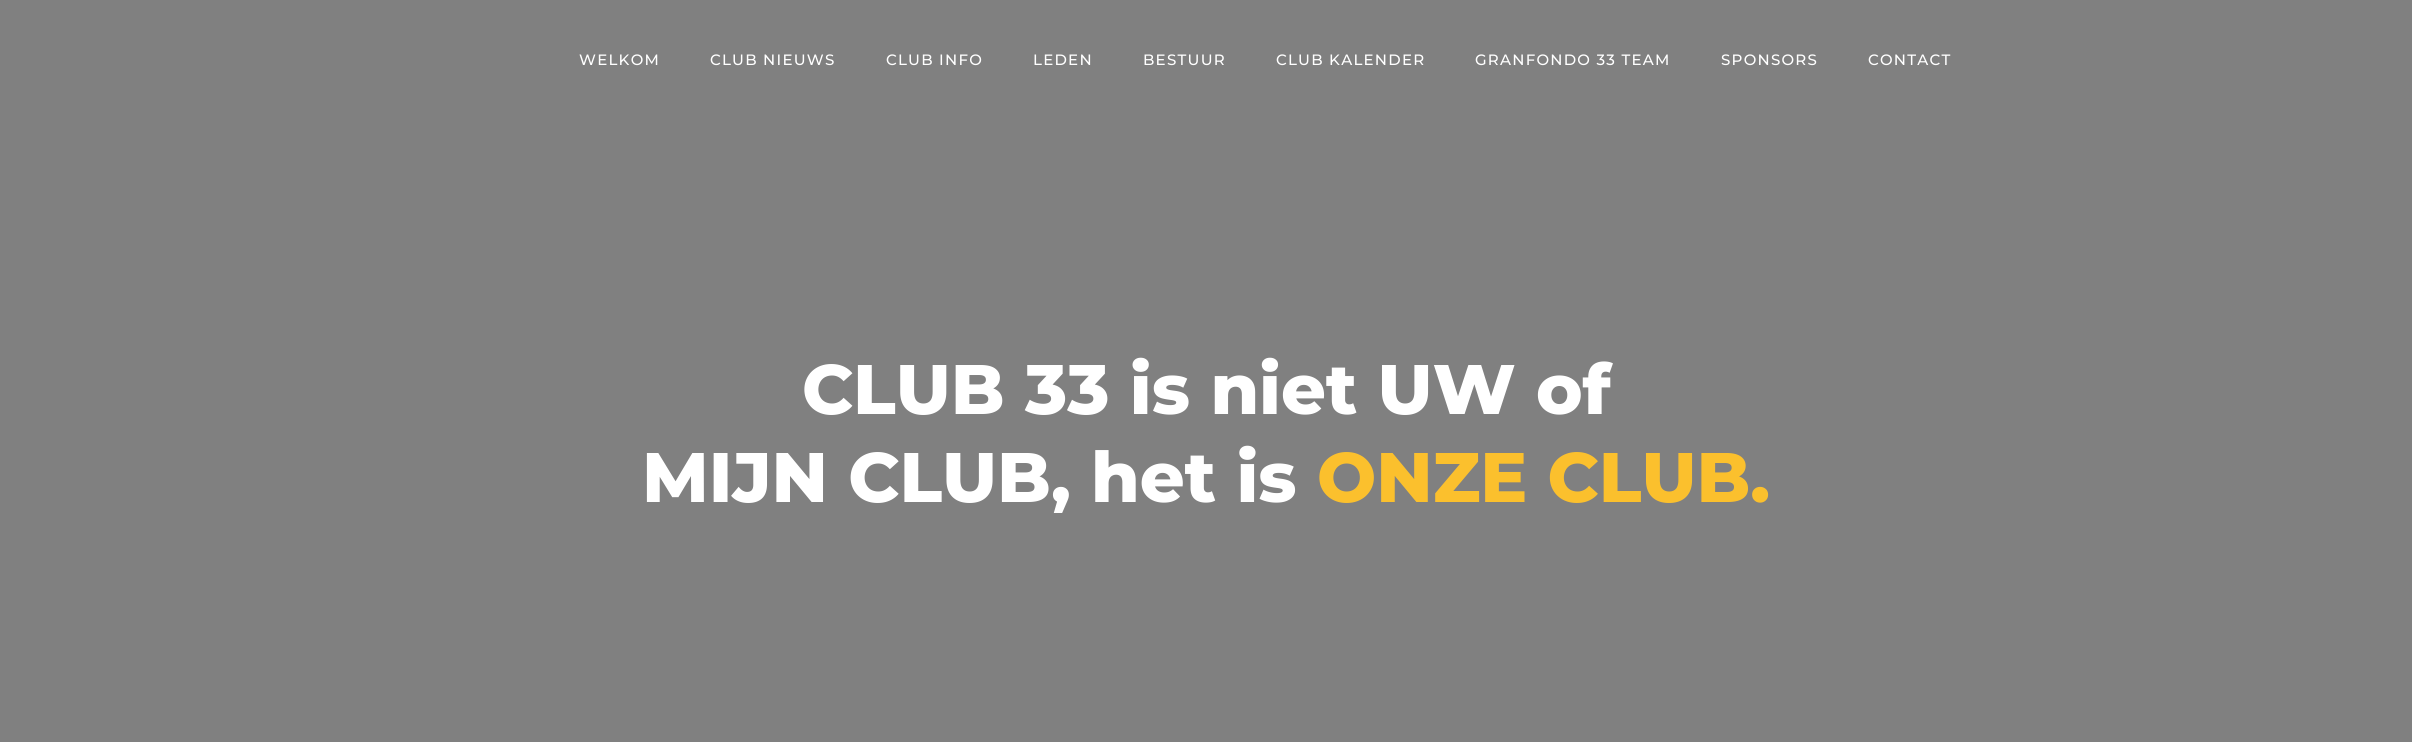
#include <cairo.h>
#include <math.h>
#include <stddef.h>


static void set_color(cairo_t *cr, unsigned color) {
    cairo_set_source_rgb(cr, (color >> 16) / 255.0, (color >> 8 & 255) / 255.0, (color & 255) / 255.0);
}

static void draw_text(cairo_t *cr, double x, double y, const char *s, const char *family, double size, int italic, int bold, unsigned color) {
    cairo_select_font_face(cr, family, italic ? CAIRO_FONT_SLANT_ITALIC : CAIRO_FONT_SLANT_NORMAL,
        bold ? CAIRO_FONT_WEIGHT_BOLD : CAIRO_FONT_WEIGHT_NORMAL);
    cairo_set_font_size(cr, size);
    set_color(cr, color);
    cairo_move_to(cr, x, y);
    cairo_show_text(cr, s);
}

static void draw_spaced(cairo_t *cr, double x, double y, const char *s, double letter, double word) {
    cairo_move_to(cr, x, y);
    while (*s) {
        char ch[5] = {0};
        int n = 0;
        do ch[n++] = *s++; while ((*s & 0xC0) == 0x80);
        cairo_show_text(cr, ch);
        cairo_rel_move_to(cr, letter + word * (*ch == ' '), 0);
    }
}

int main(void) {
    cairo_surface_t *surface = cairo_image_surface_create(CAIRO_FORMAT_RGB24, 2412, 742);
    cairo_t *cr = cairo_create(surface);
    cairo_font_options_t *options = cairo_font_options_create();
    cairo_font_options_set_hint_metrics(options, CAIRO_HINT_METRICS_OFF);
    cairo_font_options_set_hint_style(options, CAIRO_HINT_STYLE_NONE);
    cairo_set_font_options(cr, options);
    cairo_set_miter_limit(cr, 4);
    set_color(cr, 0x808080);
    cairo_paint(cr);
    cairo_select_font_face(cr, "Montserrat Medium", CAIRO_FONT_SLANT_NORMAL, CAIRO_FONT_WEIGHT_NORMAL);
    cairo_set_font_size(cr, 15);
    set_color(cr, 0xFFFFFF);
    draw_spaced(cr, 579, 65, "WELKOM", 1.25, 0);
    draw_spaced(cr, 710, 65, "CLUB NIEUWS", 1.25, 0);
    draw_spaced(cr, 886, 65, "CLUB INFO", 1.25, 0);
    draw_spaced(cr, 1033, 65, "LEDEN", 1.25, 0);
    draw_spaced(cr, 1143, 65, "BESTUUR", 1.25, 0);
    draw_spaced(cr, 1276, 65, "CLUB KALENDER", 1.25, 0);
    draw_spaced(cr, 1475, 65, "GRANFONDO 33 TEAM", 1.25, 0);
    draw_spaced(cr, 1721, 65, "SPONSORS", 1.25, 0);
    draw_spaced(cr, 1868, 65, "CONTACT", 1.25, 0);
    draw_text(cr, 802, 414, "CLUB 33 is niet UW of", "Montserrat ExtraBold", 70, 0, 0, 0xFFFFFF);
    draw_text(cr, 642, 502, "MIJN CLUB, het is", "Montserrat ExtraBold", 70, 0, 0, 0xFFFFFF);
    draw_text(cr, 1317, 502, "ONZE CLUB.", "Montserrat ExtraBold", 70, 0, 0, 0xFBC02D);
    cairo_surface_write_to_png(surface, "output.png");
    cairo_font_options_destroy(options);
    cairo_destroy(cr);
    cairo_surface_destroy(surface);
    return 0;
}
